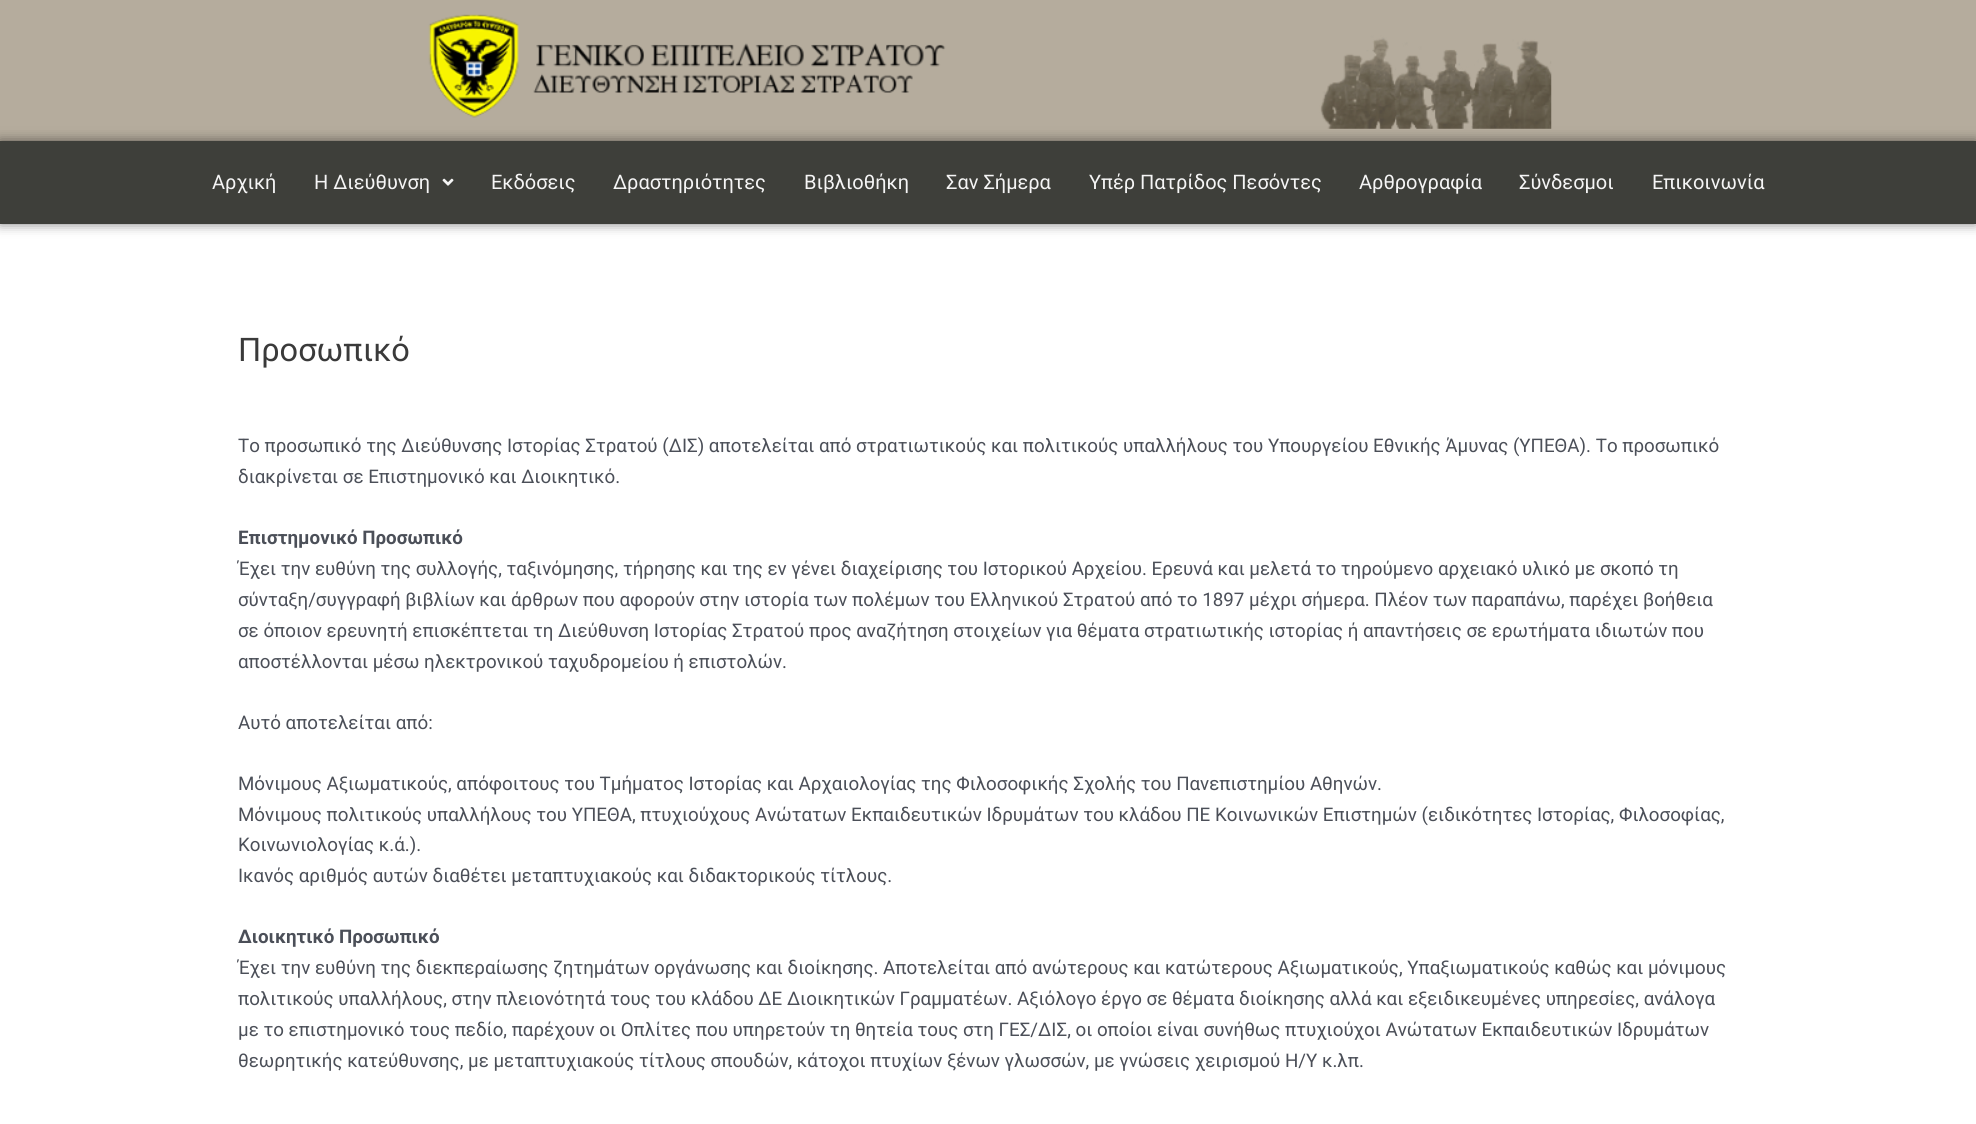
#include <cairo.h>
#include <math.h>
#include <stddef.h>


static void set_color(cairo_t *cr, unsigned color) {
    cairo_set_source_rgb(cr, (color >> 16) / 255.0, (color >> 8 & 255) / 255.0, (color & 255) / 255.0);
}

static void draw_text(cairo_t *cr, double x, double y, const char *s, const char *family, double size, int italic, int bold, unsigned color) {
    cairo_select_font_face(cr, family, italic ? CAIRO_FONT_SLANT_ITALIC : CAIRO_FONT_SLANT_NORMAL,
        bold ? CAIRO_FONT_WEIGHT_BOLD : CAIRO_FONT_WEIGHT_NORMAL);
    cairo_set_font_size(cr, size);
    set_color(cr, color);
    cairo_move_to(cr, x, y);
    cairo_show_text(cr, s);
}

static void fill_rect(cairo_t *cr, double x, double y, double w, double h, unsigned color) {
    set_color(cr, color);
    cairo_rectangle(cr, x, y, w, h);
    cairo_fill(cr);
}

static void rounded_rect(cairo_t *cr, double x, double y, double w, double h, double r) {
    cairo_new_sub_path(cr);
    cairo_arc(cr, x + w - r, y + h - r, r, 0, M_PI / 2);
    cairo_arc(cr, x + r, y + h - r, r, M_PI / 2, M_PI);
    cairo_arc(cr, x + r, y + r, r, M_PI, 1.5 * M_PI);
    cairo_arc(cr, x + w - r, y + r, r, 1.5 * M_PI, 2 * M_PI);
    cairo_close_path(cr);
}

static void draw_shadow(cairo_t *cr, double x, double y, double w, double h, double r, double blur, double alpha) {
    cairo_push_group_with_content(cr, CAIRO_CONTENT_ALPHA);
    cairo_set_operator(cr, CAIRO_OPERATOR_SOURCE);
    for (int i = 15; i >= -15 && fmin(w, h) + blur * i / 3 > 0; i -= 2) {
        double e = blur * i / 6;
        cairo_set_source_rgba(cr, 0, 0, 0, alpha * erfc((i - 1) / 8.5) / 2);
        rounded_rect(cr, x - e, y - e, w + 2 * e, h + 2 * e, fmax(0, fmin(r + e + blur * .6, fmin(w, h) / 2 + e)));
        cairo_fill(cr);
    }
    cairo_pattern_t *soft = cairo_pop_group(cr);
    cairo_mask(cr, soft);
    cairo_pattern_destroy(soft);
}

static void draw_image(cairo_t *cr, const char *path, double x, double y, double w, double h) {
    cairo_surface_t *image = cairo_image_surface_create_from_png(path);
    cairo_save(cr);
    cairo_set_source_surface(cr, image, x, y);
    cairo_rectangle(cr, x, y, w, h);
    cairo_fill(cr);
    cairo_restore(cr);
    cairo_surface_destroy(image);
}

int main(void) {
    cairo_surface_t *surface = cairo_image_surface_create(CAIRO_FORMAT_RGB24, 1976, 1124);
    cairo_t *cr = cairo_create(surface);
    cairo_font_options_t *options = cairo_font_options_create();
    cairo_font_options_set_hint_metrics(options, CAIRO_HINT_METRICS_OFF);
    cairo_font_options_set_hint_style(options, CAIRO_HINT_STYLE_NONE);
    cairo_set_font_options(cr, options);
    cairo_set_miter_limit(cr, 4);
    set_color(cr, 0xFFFFFF);
    cairo_paint(cr);
    fill_rect(cr, 0, 0, 1976, 141, 0xB5AC9D);
    draw_image(cr, "assets/img1.png", 428, 14, 1124, 115);
    set_color(cr, 0x000000);
    draw_shadow(cr, 0, 141, 1976, 83, 0, 6, 0.5);
    fill_rect(cr, 0, 141, 1976, 83, 0x3E3F3A);
    draw_text(cr, 212, 189, "Αρχική", "Roboto", 20, 0, 0, 0xF5F5F5);
    draw_text(cr, 314, 189, "Η Διεύθυνση", "Roboto", 20, 0, 0, 0xF5F5F5);
    draw_image(cr, "assets/img2.png", 442, 178, 12, 8);
    draw_text(cr, 491, 189, "Εκδόσεις", "Roboto", 20, 0, 0, 0xF5F5F5);
    draw_text(cr, 613, 189, "Δραστηριότητες", "Roboto", 20, 0, 0, 0xF5F5F5);
    draw_text(cr, 804, 189, "Βιβλιοθήκη", "Roboto", 20, 0, 0, 0xF5F5F5);
    draw_text(cr, 946, 189, "Σαν Σήμερα", "Roboto", 20, 0, 0, 0xF5F5F5);
    draw_text(cr, 1089, 189, "Υπέρ Πατρίδος Πεσόντες", "Roboto", 20, 0, 0, 0xF5F5F5);
    draw_text(cr, 1359, 189, "Αρθρογραφία", "Roboto", 20, 0, 0, 0xF5F5F5);
    draw_text(cr, 1519, 189, "Σύνδεσμοι", "Roboto", 20, 0, 0, 0xF5F5F5);
    draw_text(cr, 1652, 189, "Επικοινωνία", "Roboto", 20, 0, 0, 0xF5F5F5);
    draw_text(cr, 238, 361, "Προσωπικό", "Roboto", 32.5, 0, 0, 0x3A3A3A);
    draw_text(cr, 238, 452, "Το προσωπικό της Διεύθυνσης Ιστορίας Στρατού (ΔΙΣ) αποτελείται από στρατιωτικούς και πολιτικούς υπαλλήλους του Υπουργείου Εθνικής Άμυνας (ΥΠΕΘΑ). Το προσωπικό", "Roboto", 18.75, 0, 0, 0x4B4F58);
    draw_text(cr, 238, 483, "διακρίνεται σε Επιστημονικό και Διοικητικό.", "Roboto", 18.75, 0, 0, 0x4B4F58);
    draw_text(cr, 238, 544, "Επιστημονικό Προσωπικό", "Roboto", 18.75, 0, 1, 0x4B4F58);
    draw_text(cr, 238, 575, "Έχει την ευθύνη της συλλογής, ταξινόμησης, τήρησης και της εν γένει διαχείρισης του Ιστορικού Αρχείου. Ερευνά και μελετά το τηρούμενο αρχειακό υλικό με σκοπό τη", "Roboto", 18.75, 0, 0, 0x4B4F58);
    draw_text(cr, 238, 606, "σύνταξη/συγγραφή βιβλίων και άρθρων που αφορούν στην ιστορία των πολέμων του Ελληνικού Στρατού από το 1897 μέχρι σήμερα. Πλέον των παραπάνω, παρέχει βοήθεια", "Roboto", 18.75, 0, 0, 0x4B4F58);
    draw_text(cr, 238, 637, "σε όποιον ερευνητή επισκέπτεται τη Διεύθυνση Ιστορίας Στρατού προς αναζήτηση στοιχείων για θέματα στρατιωτικής ιστορίας ή απαντήσεις σε ερωτήματα ιδιωτών που", "Roboto", 18.75, 0, 0, 0x4B4F58);
    draw_text(cr, 238, 668, "αποστέλλονται μέσω ηλεκτρονικού ταχυδρομείου ή επιστολών.", "Roboto", 18.75, 0, 0, 0x4B4F58);
    draw_text(cr, 238, 729, "Αυτό αποτελείται από:", "Roboto", 18.75, 0, 0, 0x4B4F58);
    draw_text(cr, 238, 790, "Μόνιμους Αξιωματικούς, απόφοιτους του Τμήματος Ιστορίας και Αρχαιολογίας της Φιλοσοφικής Σχολής του Πανεπιστημίου Αθηνών.", "Roboto", 18.75, 0, 0, 0x4B4F58);
    draw_text(cr, 238, 821, "Μόνιμους πολιτικούς υπαλλήλους του ΥΠΕΘΑ, πτυχιούχους Ανώτατων Εκπαιδευτικών Ιδρυμάτων του κλάδου ΠΕ Κοινωνικών Επιστημών (ειδικότητες Ιστορίας, Φιλοσοφίας,", "Roboto", 18.75, 0, 0, 0x4B4F58);
    draw_text(cr, 238, 851, "Κοινωνιολογίας κ.ά.).", "Roboto", 18.75, 0, 0, 0x4B4F58);
    draw_text(cr, 238, 882, "Ικανός αριθμός αυτών διαθέτει μεταπτυχιακούς και διδακτορικούς τίτλους.", "Roboto", 18.75, 0, 0, 0x4B4F58);
    draw_text(cr, 238, 943, "Διοικητικό Προσωπικό", "Roboto", 18.75, 0, 1, 0x4B4F58);
    draw_text(cr, 238, 974, "Έχει την ευθύνη της διεκπεραίωσης ζητημάτων οργάνωσης και διοίκησης. Αποτελείται από ανώτερους και κατώτερους Αξιωματικούς, Υπαξιωματικούς καθώς και μόνιμους", "Roboto", 18.75, 0, 0, 0x4B4F58);
    draw_text(cr, 238, 1005, "πολιτικούς υπαλλήλους, στην πλειονότητά τους του κλάδου ΔΕ Διοικητικών Γραμματέων. Αξιόλογο έργο σε θέματα διοίκησης αλλά και εξειδικευμένες υπηρεσίες, ανάλογα", "Roboto", 18.75, 0, 0, 0x4B4F58);
    draw_text(cr, 238, 1036, "με το επιστημονικό τους πεδίο, παρέχουν οι Οπλίτες που υπηρετούν τη θητεία τους στη ΓΕΣ/ΔΙΣ, οι οποίοι είναι συνήθως πτυχιούχοι Ανώτατων Εκπαιδευτικών Ιδρυμάτων", "Roboto", 18.75, 0, 0, 0x4B4F58);
    draw_text(cr, 238, 1067, "θεωρητικής κατεύθυνσης, με μεταπτυχιακούς τίτλους σπουδών, κάτοχοι πτυχίων ξένων γλωσσών, με γνώσεις χειρισμού Η/Υ κ.λπ.", "Roboto", 18.75, 0, 0, 0x4B4F58);
    cairo_surface_write_to_png(surface, "output.png");
    cairo_font_options_destroy(options);
    cairo_destroy(cr);
    cairo_surface_destroy(surface);
    return 0;
}
